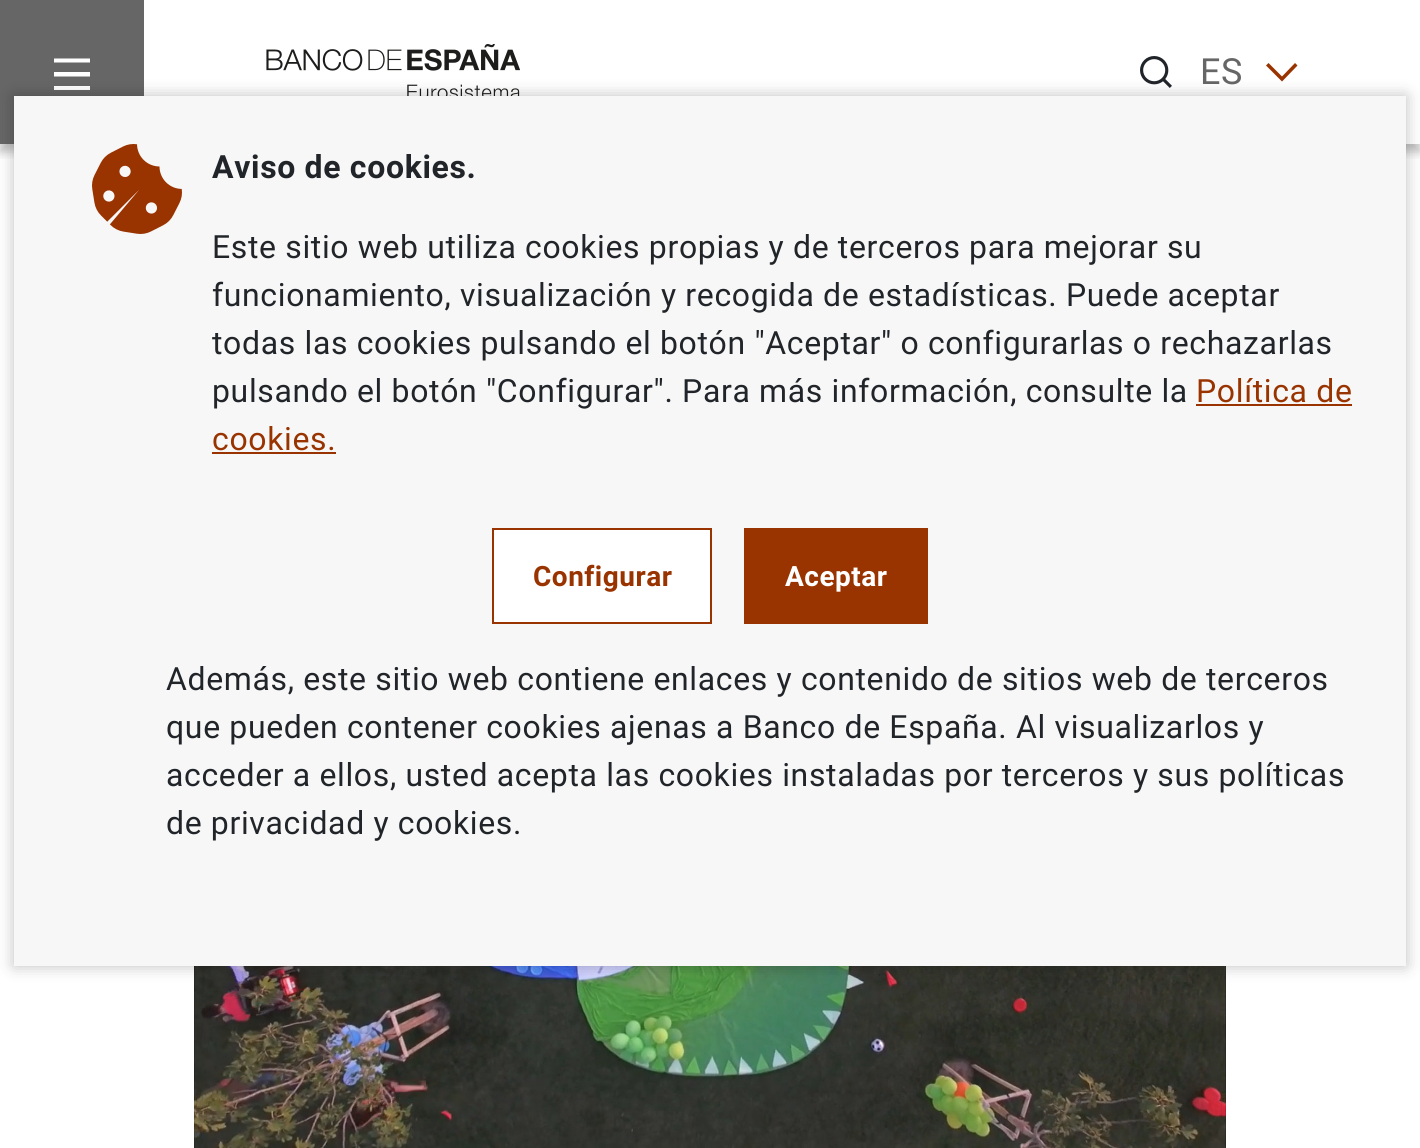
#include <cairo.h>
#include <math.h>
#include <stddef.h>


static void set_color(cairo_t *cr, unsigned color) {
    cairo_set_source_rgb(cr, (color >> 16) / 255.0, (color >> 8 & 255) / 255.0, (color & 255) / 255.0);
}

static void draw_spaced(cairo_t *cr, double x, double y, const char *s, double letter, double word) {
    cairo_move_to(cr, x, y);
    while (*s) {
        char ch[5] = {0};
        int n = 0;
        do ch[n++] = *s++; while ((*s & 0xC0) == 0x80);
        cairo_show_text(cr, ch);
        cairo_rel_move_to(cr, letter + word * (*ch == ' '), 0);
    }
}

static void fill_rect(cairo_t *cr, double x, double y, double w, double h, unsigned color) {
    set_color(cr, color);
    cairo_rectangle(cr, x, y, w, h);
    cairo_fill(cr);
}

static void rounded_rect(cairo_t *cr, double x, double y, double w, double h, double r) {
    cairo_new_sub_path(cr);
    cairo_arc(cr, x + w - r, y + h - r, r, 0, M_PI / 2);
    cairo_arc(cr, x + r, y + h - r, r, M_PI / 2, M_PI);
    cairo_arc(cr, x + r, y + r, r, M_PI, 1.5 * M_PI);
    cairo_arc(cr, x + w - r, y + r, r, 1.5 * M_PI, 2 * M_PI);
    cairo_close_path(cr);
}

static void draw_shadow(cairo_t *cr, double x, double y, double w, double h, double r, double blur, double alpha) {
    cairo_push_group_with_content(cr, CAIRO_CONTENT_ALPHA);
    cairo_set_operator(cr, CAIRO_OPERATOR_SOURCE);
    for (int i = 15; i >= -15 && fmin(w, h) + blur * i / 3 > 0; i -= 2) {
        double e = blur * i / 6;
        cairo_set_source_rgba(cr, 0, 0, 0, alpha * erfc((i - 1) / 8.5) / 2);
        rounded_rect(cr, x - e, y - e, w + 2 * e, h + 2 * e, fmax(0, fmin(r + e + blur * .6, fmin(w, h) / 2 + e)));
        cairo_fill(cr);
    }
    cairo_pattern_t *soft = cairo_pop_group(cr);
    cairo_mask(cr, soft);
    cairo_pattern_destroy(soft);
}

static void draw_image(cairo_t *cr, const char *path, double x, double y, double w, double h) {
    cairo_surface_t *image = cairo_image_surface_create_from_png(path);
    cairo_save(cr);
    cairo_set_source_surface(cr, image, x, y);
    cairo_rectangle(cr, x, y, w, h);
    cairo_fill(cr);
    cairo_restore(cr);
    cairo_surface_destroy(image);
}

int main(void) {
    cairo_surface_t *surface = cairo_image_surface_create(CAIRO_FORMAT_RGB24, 1420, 1148);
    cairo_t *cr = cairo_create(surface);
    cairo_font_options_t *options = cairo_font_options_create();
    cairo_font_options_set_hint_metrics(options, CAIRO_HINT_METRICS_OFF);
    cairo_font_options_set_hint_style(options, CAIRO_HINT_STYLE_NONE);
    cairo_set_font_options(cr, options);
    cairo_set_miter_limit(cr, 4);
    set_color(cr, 0xFFFFFF);
    cairo_paint(cr);
    cairo_save(cr);
    cairo_rectangle(cr, 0, 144, 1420, 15);
    cairo_clip(cr);
    set_color(cr, 0x000000);
    draw_shadow(cr, 0, 8, 1420, 144, 0, 5, 0.25);
    cairo_restore(cr);
    fill_rect(cr, 0, 0, 144, 144, 0x666666);
    set_color(cr, 0xFFFFFF);
    cairo_new_path(cr);
    cairo_move_to(cr, 54, 58.5);
    cairo_line_to(cr, 90, 58.5);
    cairo_line_to(cr, 90, 62.5);
    cairo_line_to(cr, 54, 62.5);
    cairo_close_path(cr);
    cairo_move_to(cr, 54, 72);
    cairo_line_to(cr, 90, 72);
    cairo_line_to(cr, 90, 76.5);
    cairo_line_to(cr, 54, 76.5);
    cairo_close_path(cr);
    cairo_move_to(cr, 54, 86);
    cairo_line_to(cr, 90, 86);
    cairo_line_to(cr, 90, 90);
    cairo_line_to(cr, 54, 90);
    cairo_close_path(cr);
    cairo_fill(cr);
    draw_image(cr, "assets/img1.png", 266, 44, 254, 52);
    draw_image(cr, "assets/img2.png", 1140, 56, 32, 32);
    cairo_select_font_face(cr, "Roboto", CAIRO_FONT_SLANT_NORMAL, CAIRO_FONT_WEIGHT_NORMAL);
    cairo_set_font_size(cr, 36);
    set_color(cr, 0x666666);
    draw_spaced(cr, 1200, 84, "ES", 0.65, 0);
    set_color(cr, 0x993300);
    cairo_new_path(cr);
    cairo_move_to(cr, 1282, 81.5);
    cairo_line_to(cr, 1282, 81.5);
    cairo_close_path(cr);
    cairo_move_to(cr, 1295, 63);
    cairo_line_to(cr, 1282, 76.5);
    cairo_line_to(cr, 1268.5, 63);
    cairo_line_to(cr, 1266, 65.5);
    cairo_line_to(cr, 1282, 81.5);
    cairo_line_to(cr, 1297.5, 65.5);
    cairo_close_path(cr);
    cairo_fill(cr);
    draw_image(cr, "assets/img4.png", 194, 966, 1032, 182);
    set_color(cr, 0x000000);
    draw_shadow(cr, 14, 96, 1392, 870, 0, 8, 0.25);
    fill_rect(cr, 14, 96, 1392, 870, 0xF7F7F7);
    draw_image(cr, "assets/img3.png", 92, 144, 90, 90);
    cairo_select_font_face(cr, "Roboto", CAIRO_FONT_SLANT_NORMAL, CAIRO_FONT_WEIGHT_BOLD);
    cairo_set_font_size(cr, 32);
    set_color(cr, 0x212529);
    draw_spaced(cr, 212, 178, "Aviso de cookies.", 0.65, 0);
    cairo_select_font_face(cr, "Roboto", CAIRO_FONT_SLANT_NORMAL, CAIRO_FONT_WEIGHT_NORMAL);
    draw_spaced(cr, 212, 258, "Este sitio web utiliza cookies propias y de terceros para mejorar su", 0.65, 0);
    draw_spaced(cr, 212, 306, "funcionamiento, visualización y recogida de estadísticas. Puede aceptar", 0.65, 0);
    draw_spaced(cr, 212, 354, "todas las cookies pulsando el botón \"Aceptar\" o configurarlas o rechazarlas", 0.65, 0);
    draw_spaced(cr, 212, 402, "pulsando el botón \"Configurar\". Para más información, consulte la", 0.65, 0);
    set_color(cr, 0x993300);
    draw_spaced(cr, 1196, 402, "Política de", 0.65, 0);
    fill_rect(cr, 1196, 404, 156, 2, 0x993300);
    draw_spaced(cr, 212, 450, "cookies.", 0.65, 0);
    fill_rect(cr, 212, 452, 124, 2, 0x993300);
    set_color(cr, 0xFFFFFF);
    cairo_rectangle(cr, 493, 529, 218, 94);
    cairo_fill_preserve(cr);
    set_color(cr, 0x993300);
    cairo_stroke(cr);
    cairo_select_font_face(cr, "Roboto", CAIRO_FONT_SLANT_NORMAL, CAIRO_FONT_WEIGHT_BOLD);
    cairo_set_font_size(cr, 28);
    draw_spaced(cr, 533, 586, "Configurar", 0.5, 0);
    fill_rect(cr, 744, 528, 184, 96, 0x993300);
    set_color(cr, 0xFFFFFF);
    draw_spaced(cr, 785, 586, "Aceptar", 0.5, 0);
    cairo_select_font_face(cr, "Roboto", CAIRO_FONT_SLANT_NORMAL, CAIRO_FONT_WEIGHT_NORMAL);
    cairo_set_font_size(cr, 32);
    set_color(cr, 0x212529);
    draw_spaced(cr, 166, 690, "Además, este sitio web contiene enlaces y contenido de sitios web de terceros", 0.65, 0);
    draw_spaced(cr, 166, 738, "que pueden contener cookies ajenas a Banco de España. Al visualizarlos y", 0.65, 0);
    draw_spaced(cr, 166, 786, "acceder a ellos, usted acepta las cookies instaladas por terceros y sus políticas", 0.65, 0);
    draw_spaced(cr, 166, 834, "de privacidad y cookies.", 0.65, 0);
    cairo_surface_write_to_png(surface, "output.png");
    cairo_font_options_destroy(options);
    cairo_destroy(cr);
    cairo_surface_destroy(surface);
    return 0;
}
